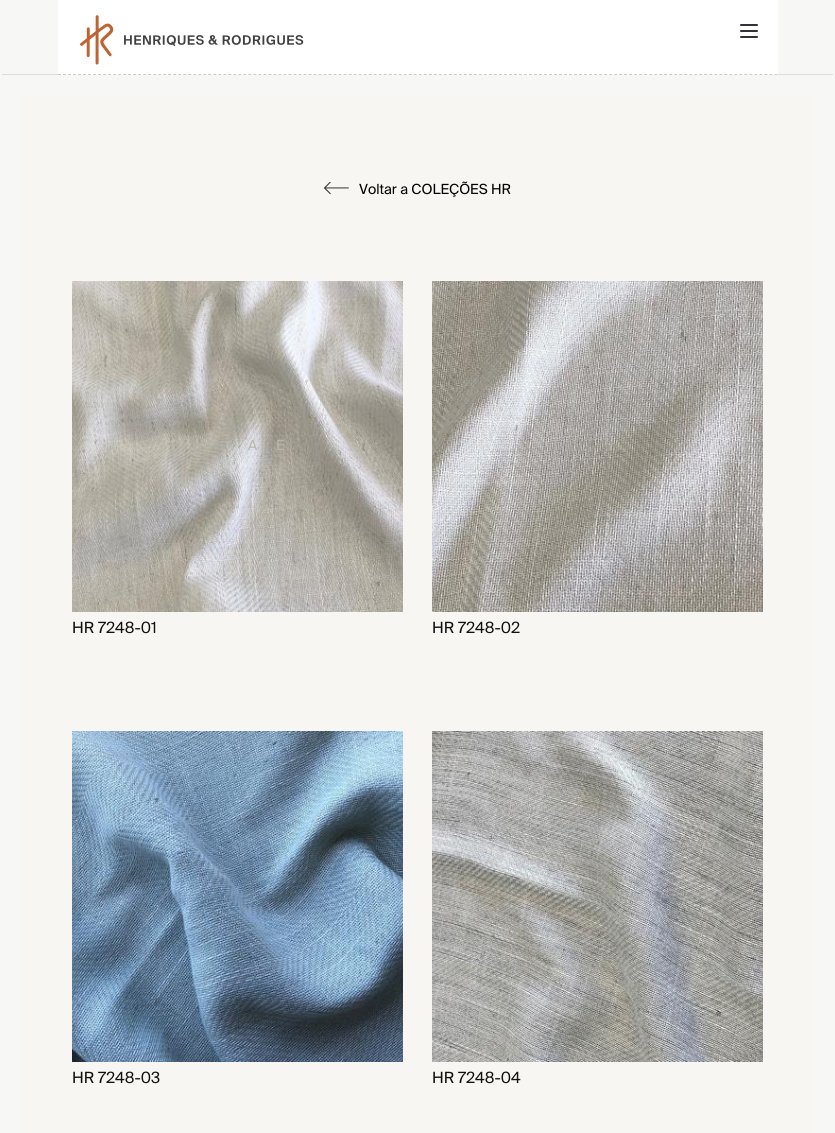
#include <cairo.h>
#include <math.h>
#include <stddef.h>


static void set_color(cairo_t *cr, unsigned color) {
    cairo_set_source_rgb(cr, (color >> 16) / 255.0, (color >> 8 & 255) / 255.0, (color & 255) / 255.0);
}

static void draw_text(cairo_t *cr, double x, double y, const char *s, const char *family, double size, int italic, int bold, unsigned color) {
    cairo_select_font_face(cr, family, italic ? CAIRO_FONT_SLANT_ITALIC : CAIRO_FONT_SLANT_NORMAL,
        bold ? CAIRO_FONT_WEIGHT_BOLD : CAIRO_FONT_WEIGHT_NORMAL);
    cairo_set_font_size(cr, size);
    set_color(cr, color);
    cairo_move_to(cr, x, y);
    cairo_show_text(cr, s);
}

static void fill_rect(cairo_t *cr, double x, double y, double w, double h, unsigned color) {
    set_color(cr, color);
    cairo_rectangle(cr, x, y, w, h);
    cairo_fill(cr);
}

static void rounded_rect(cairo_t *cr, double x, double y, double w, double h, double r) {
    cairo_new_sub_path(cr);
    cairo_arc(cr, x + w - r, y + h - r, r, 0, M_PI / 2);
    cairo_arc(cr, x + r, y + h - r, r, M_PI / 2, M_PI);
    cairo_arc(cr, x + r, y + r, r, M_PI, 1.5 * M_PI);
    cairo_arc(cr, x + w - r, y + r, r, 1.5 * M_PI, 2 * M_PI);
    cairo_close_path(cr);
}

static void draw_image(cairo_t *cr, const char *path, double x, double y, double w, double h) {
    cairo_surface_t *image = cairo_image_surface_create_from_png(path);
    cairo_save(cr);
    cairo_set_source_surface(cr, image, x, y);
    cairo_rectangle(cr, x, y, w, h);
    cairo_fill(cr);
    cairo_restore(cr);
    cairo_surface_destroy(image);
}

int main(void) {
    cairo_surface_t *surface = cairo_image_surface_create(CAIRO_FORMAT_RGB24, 835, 1133);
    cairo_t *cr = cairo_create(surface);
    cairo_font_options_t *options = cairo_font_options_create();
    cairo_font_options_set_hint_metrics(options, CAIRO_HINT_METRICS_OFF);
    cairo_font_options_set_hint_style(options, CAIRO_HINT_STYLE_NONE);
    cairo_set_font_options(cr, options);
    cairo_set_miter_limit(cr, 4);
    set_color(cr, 0xF7F7F5);
    cairo_paint(cr);
    fill_rect(cr, 2, 74, 831, 1, 0xDDDDDD);
    fill_rect(cr, 58, 0, 720, 75, 0xFFFFFF);
    cairo_new_path(cr);
    cairo_move_to(cr, 58, 74.5);
    cairo_line_to(cr, 778, 74.5);
    set_color(cr, 0xCCCCCC);
    cairo_set_line_width(cr, 1);
    cairo_set_dash(cr, (double[]){3, 2.01}, 2, 0);
    cairo_stroke(cr);
    draw_image(cr, "assets/img1.png", 80, 15, 224, 50);
    set_color(cr, 0x323237);
    rounded_rect(cr, 740, 24, 18, 2, 1);
    cairo_fill(cr);
    rounded_rect(cr, 740, 30, 18, 2, 1);
    cairo_fill(cr);
    rounded_rect(cr, 740, 36, 18, 2, 1);
    cairo_fill(cr);
    fill_rect(cr, 20, 95, 795, 1038, 0xF7F6F2);
    draw_image(cr, "assets/img2.png", 324, 182, 25, 13);
    draw_text(cr, 359, 194, "Voltar a COLEÇÕES HR", "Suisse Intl", 14, 0, 0, 0x000000);
    draw_image(cr, "assets/img3.png", 72, 281, 331, 331);
    draw_text(cr, 248, 450, "A", "Suisse Intl", 14, 0, 0, 0xB8B6AE);
    draw_text(cr, 276, 450, "E", "Suisse Intl", 14, 0, 0, 0xB8B6AE);
    draw_text(cr, 72, 633, "HR 7248-01", "Suisse Intl", 15.5, 0, 0, 0x111111);
    draw_image(cr, "assets/img4.png", 432, 281, 331, 331);
    draw_text(cr, 432, 633, "HR 7248-02", "Suisse Intl", 15.5, 0, 0, 0x111111);
    draw_image(cr, "assets/img5.png", 72, 731, 331, 331);
    draw_text(cr, 72, 1083, "HR 7248-03", "Suisse Intl", 15.5, 0, 0, 0x111111);
    draw_image(cr, "assets/img6.png", 432, 731, 331, 331);
    draw_text(cr, 432, 1083, "HR 7248-04", "Suisse Intl", 15.5, 0, 0, 0x111111);
    cairo_surface_write_to_png(surface, "output.png");
    cairo_font_options_destroy(options);
    cairo_destroy(cr);
    cairo_surface_destroy(surface);
    return 0;
}
